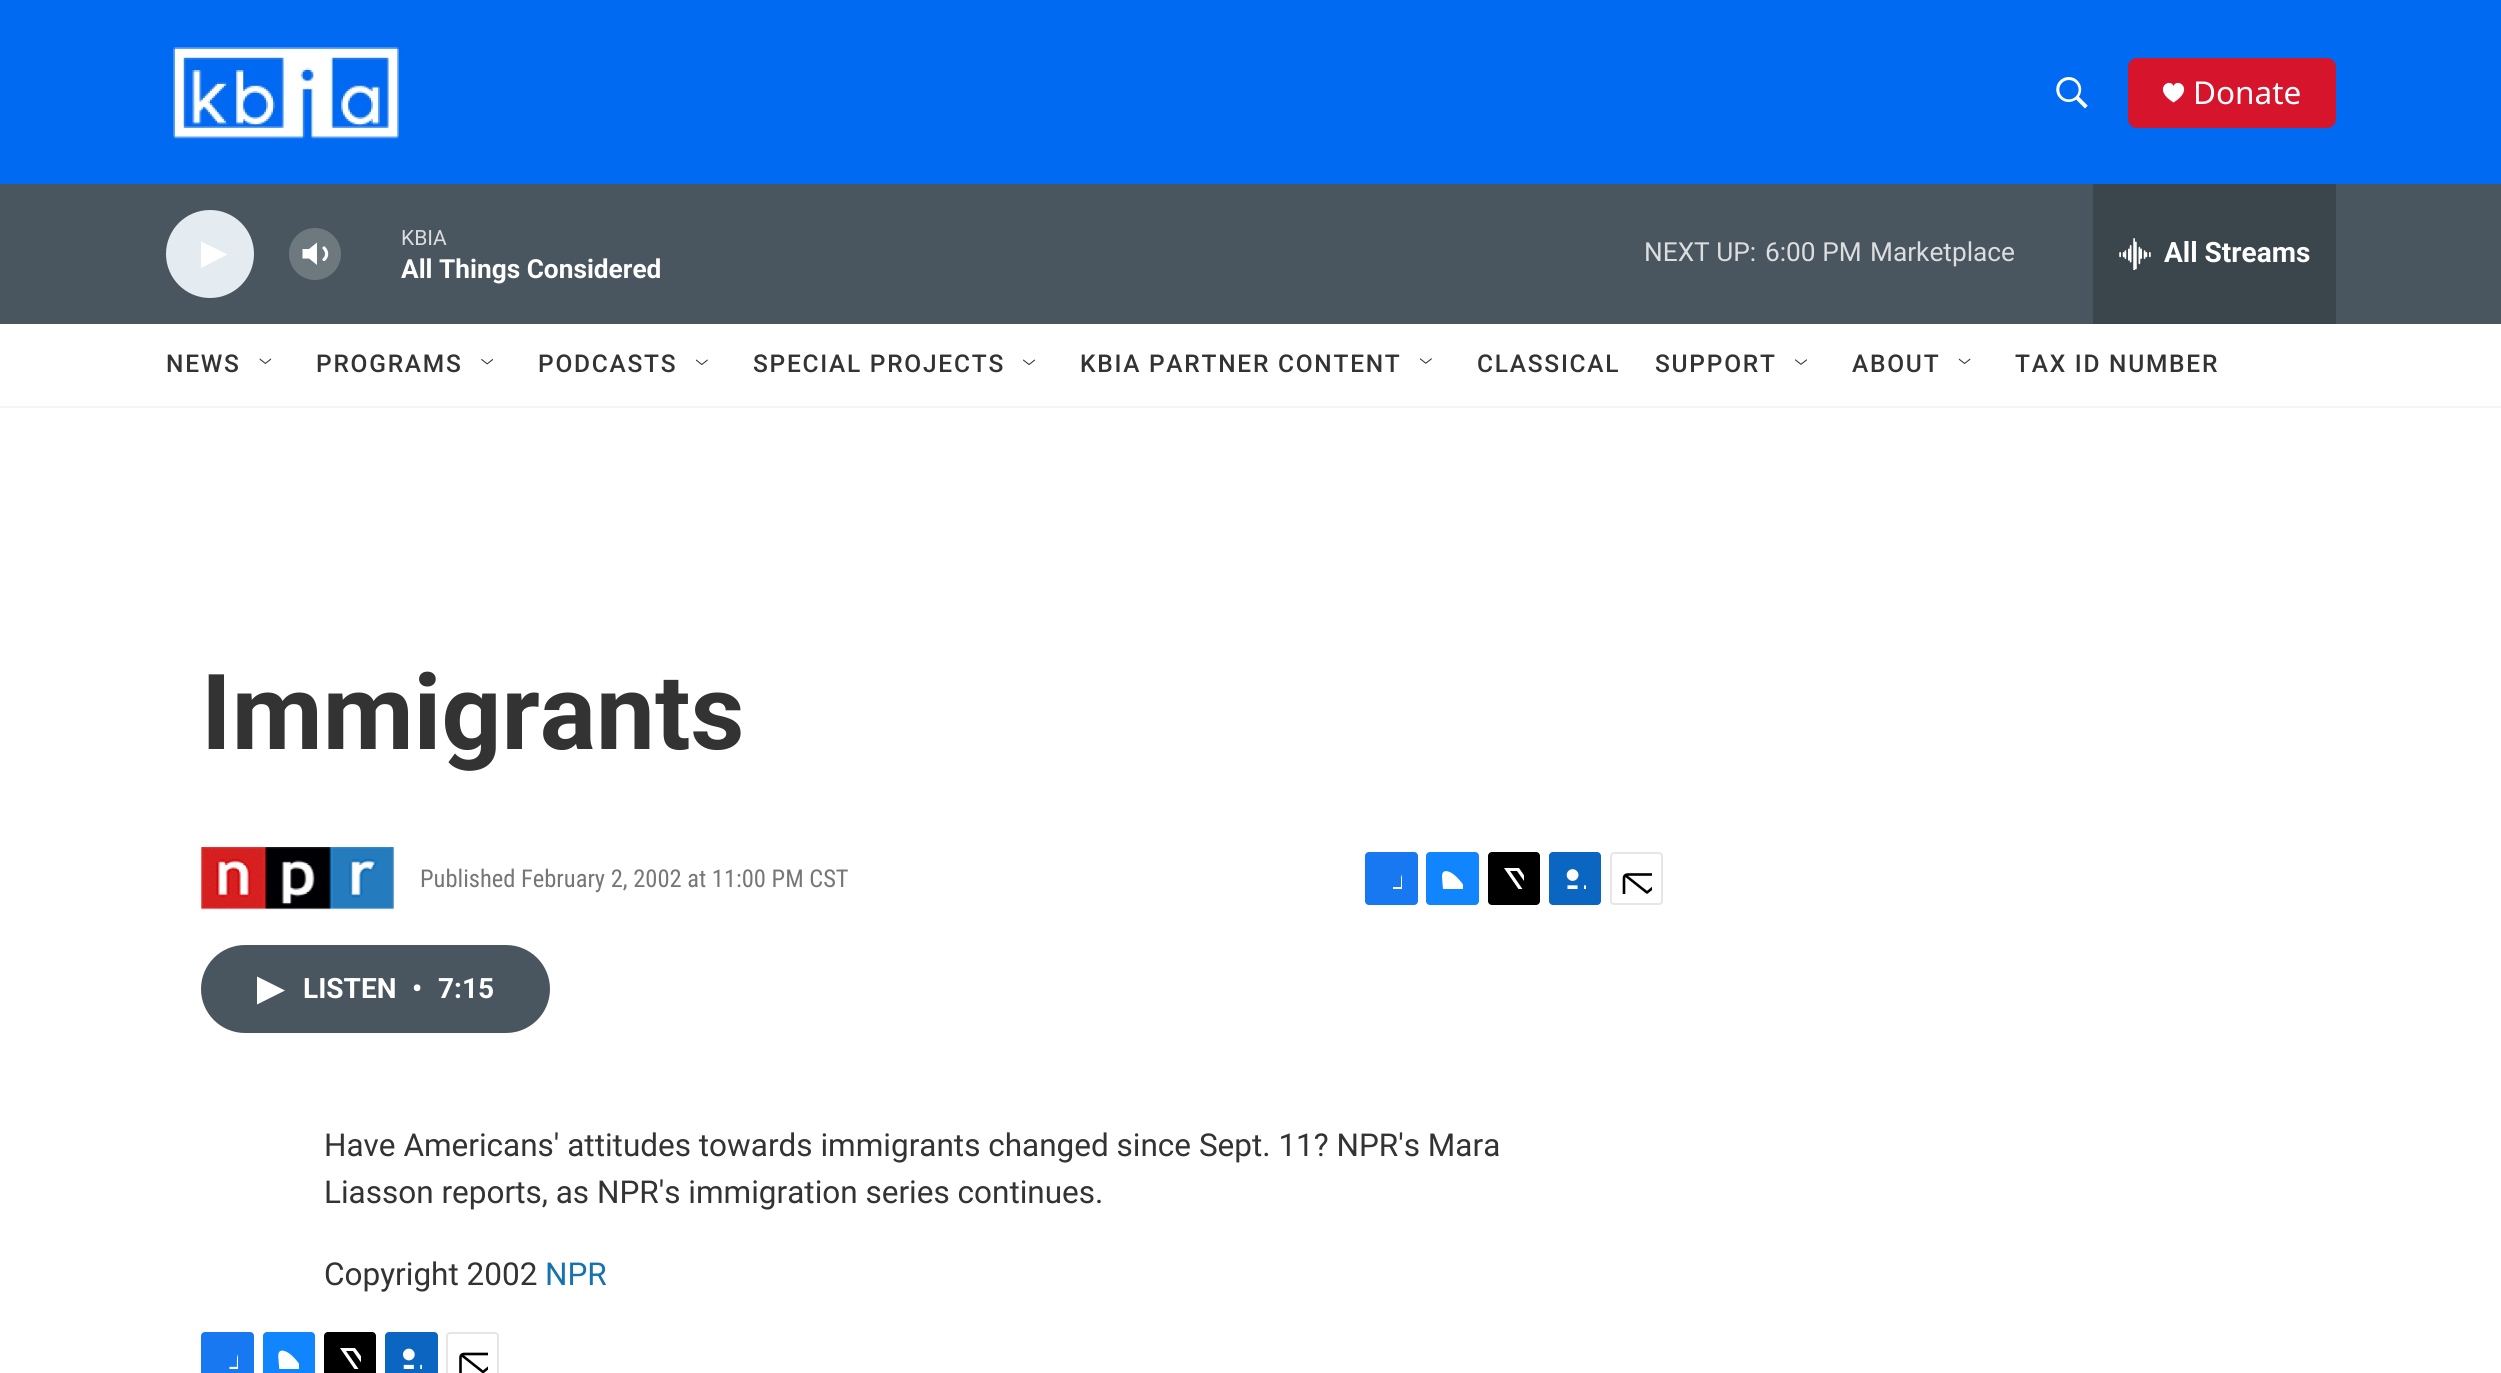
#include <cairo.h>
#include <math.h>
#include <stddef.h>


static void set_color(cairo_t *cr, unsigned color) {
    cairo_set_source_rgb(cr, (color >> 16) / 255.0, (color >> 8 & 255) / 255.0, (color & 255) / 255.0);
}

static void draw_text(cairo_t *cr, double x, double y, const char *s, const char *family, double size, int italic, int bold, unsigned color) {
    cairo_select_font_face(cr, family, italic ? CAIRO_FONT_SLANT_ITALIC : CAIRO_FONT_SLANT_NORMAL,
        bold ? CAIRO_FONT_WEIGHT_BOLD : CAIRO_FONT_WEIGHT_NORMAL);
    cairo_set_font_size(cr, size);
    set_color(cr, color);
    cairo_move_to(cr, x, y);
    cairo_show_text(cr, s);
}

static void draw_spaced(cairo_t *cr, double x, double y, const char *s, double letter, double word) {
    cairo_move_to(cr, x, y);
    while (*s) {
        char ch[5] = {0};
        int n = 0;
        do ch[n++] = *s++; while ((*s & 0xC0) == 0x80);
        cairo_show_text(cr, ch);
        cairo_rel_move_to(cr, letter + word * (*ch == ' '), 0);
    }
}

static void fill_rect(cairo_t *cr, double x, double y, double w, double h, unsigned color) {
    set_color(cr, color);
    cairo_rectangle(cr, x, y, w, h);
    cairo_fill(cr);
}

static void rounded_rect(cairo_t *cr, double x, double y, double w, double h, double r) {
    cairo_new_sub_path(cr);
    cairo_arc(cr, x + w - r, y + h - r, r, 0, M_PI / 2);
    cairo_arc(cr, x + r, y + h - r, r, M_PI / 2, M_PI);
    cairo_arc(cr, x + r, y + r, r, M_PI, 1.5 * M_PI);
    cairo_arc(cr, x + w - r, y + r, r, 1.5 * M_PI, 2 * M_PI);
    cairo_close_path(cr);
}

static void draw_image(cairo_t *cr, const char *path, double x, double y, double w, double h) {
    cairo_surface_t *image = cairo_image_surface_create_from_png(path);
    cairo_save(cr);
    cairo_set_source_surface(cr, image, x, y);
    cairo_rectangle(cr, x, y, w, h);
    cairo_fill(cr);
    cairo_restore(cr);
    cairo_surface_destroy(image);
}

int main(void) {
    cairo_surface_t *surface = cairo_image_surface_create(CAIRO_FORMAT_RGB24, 2501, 1373);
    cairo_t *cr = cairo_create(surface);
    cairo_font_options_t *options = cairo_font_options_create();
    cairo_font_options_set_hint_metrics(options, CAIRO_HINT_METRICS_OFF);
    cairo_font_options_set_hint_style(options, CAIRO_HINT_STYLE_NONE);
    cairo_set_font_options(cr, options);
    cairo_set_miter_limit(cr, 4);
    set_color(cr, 0xFFFFFF);
    cairo_paint(cr);
    fill_rect(cr, 0, 0, 2501, 184, 0x006AF3);
    fill_rect(cr, 0, 406, 2501, 2, 0xF5F5F5);
    draw_image(cr, "assets/img1.png", 172, 46, 232, 93);
    draw_image(cr, "assets/img2.png", 2056, 77, 32, 32);
    set_color(cr, 0xD6152C);
    rounded_rect(cr, 2128, 58, 208, 70, 9);
    cairo_fill(cr);
    set_color(cr, 0xFFFFFF);
    cairo_new_path(cr);
    cairo_move_to(cr, 2173.5, 86);
    cairo_curve_to(cr, 2170, 77, 2151.5, 89, 2173.5, 102.5);
    cairo_curve_to(cr, 2195.5, 89, 2177, 77, 2173.5, 86);
    cairo_close_path(cr);
    cairo_fill(cr);
    draw_text(cr, 2193, 104, "Donate", "Noto Sans", 31.5, 0, 0, 0xFFFFFF);
    fill_rect(cr, 0, 184, 2501, 140, 0x4A565F);
    set_color(cr, 0xE4ECF2);
    cairo_new_path(cr);
    cairo_arc(cr, 210, 254, 44, 0, 2 * M_PI);
    cairo_fill(cr);
    set_color(cr, 0xFFFFFF);
    cairo_new_path(cr);
    cairo_move_to(cr, 201, 241.5);
    cairo_line_to(cr, 227.5, 254.5);
    cairo_line_to(cr, 201, 268);
    cairo_close_path(cr);
    cairo_fill(cr);
    cairo_new_path(cr);
    cairo_move_to(cr, 317, 242.5);
    cairo_line_to(cr, 309, 249);
    cairo_line_to(cr, 302.5, 249);
    cairo_line_to(cr, 302.5, 258.5);
    cairo_line_to(cr, 309, 258.5);
    cairo_line_to(cr, 317, 265);
    cairo_close_path(cr);
    cairo_fill(cr);
    cairo_new_path(cr);
    cairo_move_to(cr, 324, 248);
    cairo_curve_to(cr, 327.5, 251.5, 327.5, 256.5, 324, 259.5);
    cairo_set_line_width(cr, 3.2);
    cairo_set_line_cap(cr, CAIRO_LINE_CAP_ROUND);
    cairo_set_line_join(cr, CAIRO_LINE_JOIN_ROUND);
    cairo_stroke(cr);
    cairo_set_source_rgba(cr, 1, 1, 1, 0.2);
    cairo_arc(cr, 315, 254, 26, 0, 2 * M_PI);
    cairo_fill(cr);
    draw_text(cr, 401, 245, "KBIA", "Roboto", 21, 0, 0, 0xDBDDDF);
    draw_text(cr, 401, 278, "All Things Considered", "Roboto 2", 26.25, 0, 1, 0xFFFFFF);
    draw_text(cr, 1644, 261, "NEXT UP:", "Roboto", 26.25, 0, 0, 0xDBDDDF);
    draw_text(cr, 1765, 261, "6:00 PM", "Roboto", 26.25, 0, 0, 0xDBDDDF);
    draw_text(cr, 1870, 261, "Marketplace", "Roboto", 26.25, 0, 0, 0xDBDDDF);
    fill_rect(cr, 2093, 184, 243, 140, 0x3B454C);
    draw_image(cr, "assets/img3.png", 2119, 238, 32, 32);
    draw_text(cr, 2164, 262, "All Streams", "Roboto 2", 28, 0, 1, 0xFFFFFF);
    cairo_select_font_face(cr, "Roboto Medium", CAIRO_FONT_SLANT_NORMAL, CAIRO_FONT_WEIGHT_NORMAL);
    cairo_set_font_size(cr, 24.5);
    set_color(cr, 0x333333);
    draw_spaced(cr, 166, 372, "NEWS", 1.75, 0);
    draw_image(cr, "assets/img4.png", 259, 358, 13, 6);
    draw_spaced(cr, 316, 372, "PROGRAMS", 1.75, 0);
    draw_image(cr, "assets/img5.png", 481, 358, 12, 7);
    draw_spaced(cr, 538, 372, "PODCASTS", 1.75, 0);
    draw_image(cr, "assets/img6.png", 696, 359, 12, 6);
    draw_spaced(cr, 753, 372, "SPECIAL PROJECTS", 1.75, 0);
    draw_image(cr, "assets/img7.png", 1023, 359, 12, 6);
    draw_spaced(cr, 1080, 372, "KBIA PARTNER CONTENT", 1.75, 0);
    draw_image(cr, "assets/img8.png", 1420, 358, 12, 6);
    draw_spaced(cr, 1477, 372, "CLASSICAL", 1.75, 0);
    draw_spaced(cr, 1655, 372, "SUPPORT", 1.75, 0);
    draw_image(cr, "assets/img9.png", 1795, 359, 12, 6);
    draw_spaced(cr, 1852, 372, "ABOUT", 1.75, 0);
    draw_image(cr, "assets/img10.png", 1958, 358, 13, 6);
    draw_spaced(cr, 2015, 372, "TAX ID NUMBER", 1.75, 0);
    draw_text(cr, 201, 749, "Immigrants", "Roboto", 105, 0, 1, 0x333333);
    draw_image(cr, "assets/img11.png", 201, 847, 193, 63);
    draw_text(cr, 420, 887, "Published February 2, 2002 at 11:00 PM CST", "Roboto Condensed", 24.5, 0, 0, 0x767676);
    set_color(cr, 0x1778F2);
    rounded_rect(cr, 1365, 852, 53, 53, 4);
    cairo_fill(cr);
    cairo_save(cr);
    cairo_rectangle(cr, 1381, 868, 21, 21);
    cairo_clip(cr);
    set_color(cr, 0xFFFFFF);
    cairo_new_path(cr);
    cairo_move_to(cr, 1410, 905);
    cairo_line_to(cr, 1401, 905);
    cairo_line_to(cr, 1401, 896);
    cairo_line_to(cr, 1393, 896);
    cairo_line_to(cr, 1393, 887);
    cairo_line_to(cr, 1401, 887);
    cairo_line_to(cr, 1401, 878);
    cairo_curve_to(cr, 1402, 869.5, 1410.5, 868, 1418, 869);
    cairo_line_to(cr, 1418, 877);
    cairo_curve_to(cr, 1408.5, 877, 1410, 879.5, 1410, 887);
    cairo_line_to(cr, 1418, 887);
    cairo_line_to(cr, 1417, 896);
    cairo_line_to(cr, 1410, 896);
    cairo_close_path(cr);
    cairo_fill(cr);
    cairo_restore(cr);
    set_color(cr, 0x1185FE);
    rounded_rect(cr, 1426, 852, 53, 53, 4);
    cairo_fill(cr);
    draw_image(cr, "assets/img12.png", 1442, 871, 21, 18);
    set_color(cr, 0x000000);
    rounded_rect(cr, 1488, 852, 52, 53, 4);
    cairo_fill(cr);
    cairo_save(cr);
    cairo_rectangle(cr, 1503, 868, 21, 21);
    cairo_clip(cr);
    set_color(cr, 0xFFFFFF);
    cairo_new_path(cr);
    cairo_move_to(cr, 1534, 890);
    cairo_line_to(cr, 1540, 898.5);
    cairo_curve_to(cr, 1540, 900, 1540, 902, 1539.5, 903);
    cairo_line_to(cr, 1517, 871);
    cairo_line_to(cr, 1510, 871);
    cairo_line_to(cr, 1533.5, 905);
    cairo_line_to(cr, 1529.5, 905);
    cairo_line_to(cr, 1526, 900);
    cairo_line_to(cr, 1521.5, 905);
    cairo_line_to(cr, 1517, 905);
    cairo_line_to(cr, 1524, 897);
    cairo_line_to(cr, 1504, 868);
    cairo_line_to(cr, 1519, 868);
    cairo_line_to(cr, 1532, 887);
    cairo_line_to(cr, 1540, 878);
    cairo_line_to(cr, 1540, 883);
    cairo_close_path(cr);
    cairo_fill(cr);
    cairo_restore(cr);
    set_color(cr, 0x0A66C1);
    rounded_rect(cr, 1549, 852, 52, 53, 4);
    cairo_fill(cr);
    draw_image(cr, "assets/img13.png", 1566, 869, 20, 20);
    rounded_rect(cr, 1611, 853, 51, 51, 3);
    set_color(cr, 0xE6E6E6);
    cairo_set_line_width(cr, 2);
    cairo_set_line_cap(cr, CAIRO_LINE_CAP_BUTT);
    cairo_set_line_join(cr, CAIRO_LINE_JOIN_MITER);
    cairo_stroke(cr);
    cairo_save(cr);
    cairo_rectangle(cr, 1621, 863, 31, 31);
    cairo_clip(cr);
    cairo_new_path(cr);
    cairo_move_to(cr, 1669.5, 901);
    cairo_curve_to(cr, 1669.5, 903, 1668, 904.5, 1666, 904.5);
    cairo_line_to(cr, 1627.5, 904.5);
    cairo_curve_to(cr, 1625.5, 904.5, 1624, 903, 1624, 901);
    cairo_line_to(cr, 1624, 877.5);
    cairo_curve_to(cr, 1624, 876, 1625.5, 874.5, 1627.5, 874.5);
    cairo_line_to(cr, 1666, 874.5);
    cairo_curve_to(cr, 1668, 874.5, 1669.5, 876, 1669.5, 877.5);
    cairo_close_path(cr);
    cairo_move_to(cr, 1668, 875.5);
    cairo_line_to(cr, 1647, 892.5);
    cairo_line_to(cr, 1625.5, 875.5);
    set_color(cr, 0x000000);
    cairo_set_line_width(cr, 2.6);
    cairo_set_line_cap(cr, CAIRO_LINE_CAP_ROUND);
    cairo_set_line_join(cr, CAIRO_LINE_JOIN_ROUND);
    cairo_stroke(cr);
    cairo_restore(cr);
    set_color(cr, 0x4A565F);
    rounded_rect(cr, 201, 945, 349, 88, 44);
    cairo_fill(cr);
    set_color(cr, 0xFFFFFF);
    cairo_new_path(cr);
    cairo_move_to(cr, 257, 976.5);
    cairo_line_to(cr, 285, 990.5);
    cairo_line_to(cr, 257, 1004.5);
    cairo_close_path(cr);
    cairo_fill(cr);
    draw_text(cr, 303, 998, "LISTEN", "Roboto 2", 28, 0, 1, 0xFFFFFF);
    draw_text(cr, 412, 998, "•", "Roboto 2", 28, 0, 1, 0xFFFFFF);
    draw_text(cr, 438, 998, "7:15", "Roboto 2", 28, 0, 1, 0xFFFFFF);
    draw_text(cr, 324, 1156, "Have Americans' attitudes towards immigrants changed since Sept. 11? NPR's Mara", "Roboto", 31.5, 0, 0, 0x333333);
    draw_text(cr, 324, 1203, "Liasson reports, as NPR's immigration series continues.", "Roboto", 31.5, 0, 0, 0x333333);
    draw_text(cr, 324, 1285, "Copyright 2002", "Roboto", 31.5, 0, 0, 0x333333);
    draw_text(cr, 545, 1285, "NPR", "Roboto", 31.5, 0, 0, 0x1772B0);
    set_color(cr, 0x1778F2);
    rounded_rect(cr, 201, 1332, 53, 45, 4);
    cairo_fill(cr);
    draw_image(cr, "assets/img14.png", 229, 1354, 9, 15);
    set_color(cr, 0x1185FE);
    rounded_rect(cr, 263, 1332, 52, 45, 4);
    cairo_fill(cr);
    draw_image(cr, "assets/img15.png", 278, 1350, 21, 19);
    set_color(cr, 0x000000);
    rounded_rect(cr, 324, 1332, 52, 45, 4);
    cairo_fill(cr);
    cairo_save(cr);
    cairo_rectangle(cr, 340, 1348, 21, 21);
    cairo_clip(cr);
    set_color(cr, 0xFFFFFF);
    cairo_new_path(cr);
    cairo_move_to(cr, 371, 1370);
    cairo_line_to(cr, 376, 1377.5);
    cairo_curve_to(cr, 376, 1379.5, 376.5, 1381, 375, 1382.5);
    cairo_line_to(cr, 353, 1351);
    cairo_line_to(cr, 346, 1351);
    cairo_line_to(cr, 369, 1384);
    cairo_line_to(cr, 365, 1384);
    cairo_line_to(cr, 362, 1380);
    cairo_line_to(cr, 358.5, 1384);
    cairo_line_to(cr, 354, 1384);
    cairo_line_to(cr, 360, 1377);
    cairo_line_to(cr, 340, 1348);
    cairo_line_to(cr, 355, 1348);
    cairo_line_to(cr, 369, 1367);
    cairo_line_to(cr, 376, 1358.5);
    cairo_line_to(cr, 376, 1364);
    cairo_close_path(cr);
    cairo_fill(cr);
    cairo_restore(cr);
    set_color(cr, 0x0A66C1);
    rounded_rect(cr, 385, 1332, 53, 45, 4);
    cairo_fill(cr);
    draw_image(cr, "assets/img16.png", 403, 1348, 19, 21);
    rounded_rect(cr, 447, 1333, 51, 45, 3);
    set_color(cr, 0xE6E6E6);
    cairo_stroke(cr);
    cairo_save(cr);
    cairo_rectangle(cr, 457, 1342, 31, 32);
    cairo_clip(cr);
    cairo_new_path(cr);
    cairo_move_to(cr, 505.5, 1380.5);
    cairo_curve_to(cr, 505.5, 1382.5, 504, 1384, 502.5, 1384);
    cairo_line_to(cr, 463.5, 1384);
    cairo_curve_to(cr, 462, 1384, 460.5, 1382.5, 460.5, 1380.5);
    cairo_line_to(cr, 460.5, 1357);
    cairo_curve_to(cr, 460.5, 1355.5, 462, 1354, 463.5, 1354);
    cairo_line_to(cr, 502.5, 1354);
    cairo_curve_to(cr, 504, 1354, 505.5, 1355.5, 505.5, 1357);
    cairo_close_path(cr);
    cairo_move_to(cr, 504.5, 1355);
    cairo_line_to(cr, 483, 1372);
    cairo_line_to(cr, 461.5, 1355);
    set_color(cr, 0x000000);
    cairo_set_line_width(cr, 2.6);
    cairo_set_line_cap(cr, CAIRO_LINE_CAP_ROUND);
    cairo_set_line_join(cr, CAIRO_LINE_JOIN_ROUND);
    cairo_stroke(cr);
    cairo_restore(cr);
    cairo_surface_write_to_png(surface, "output.png");
    cairo_font_options_destroy(options);
    cairo_destroy(cr);
    cairo_surface_destroy(surface);
    return 0;
}
